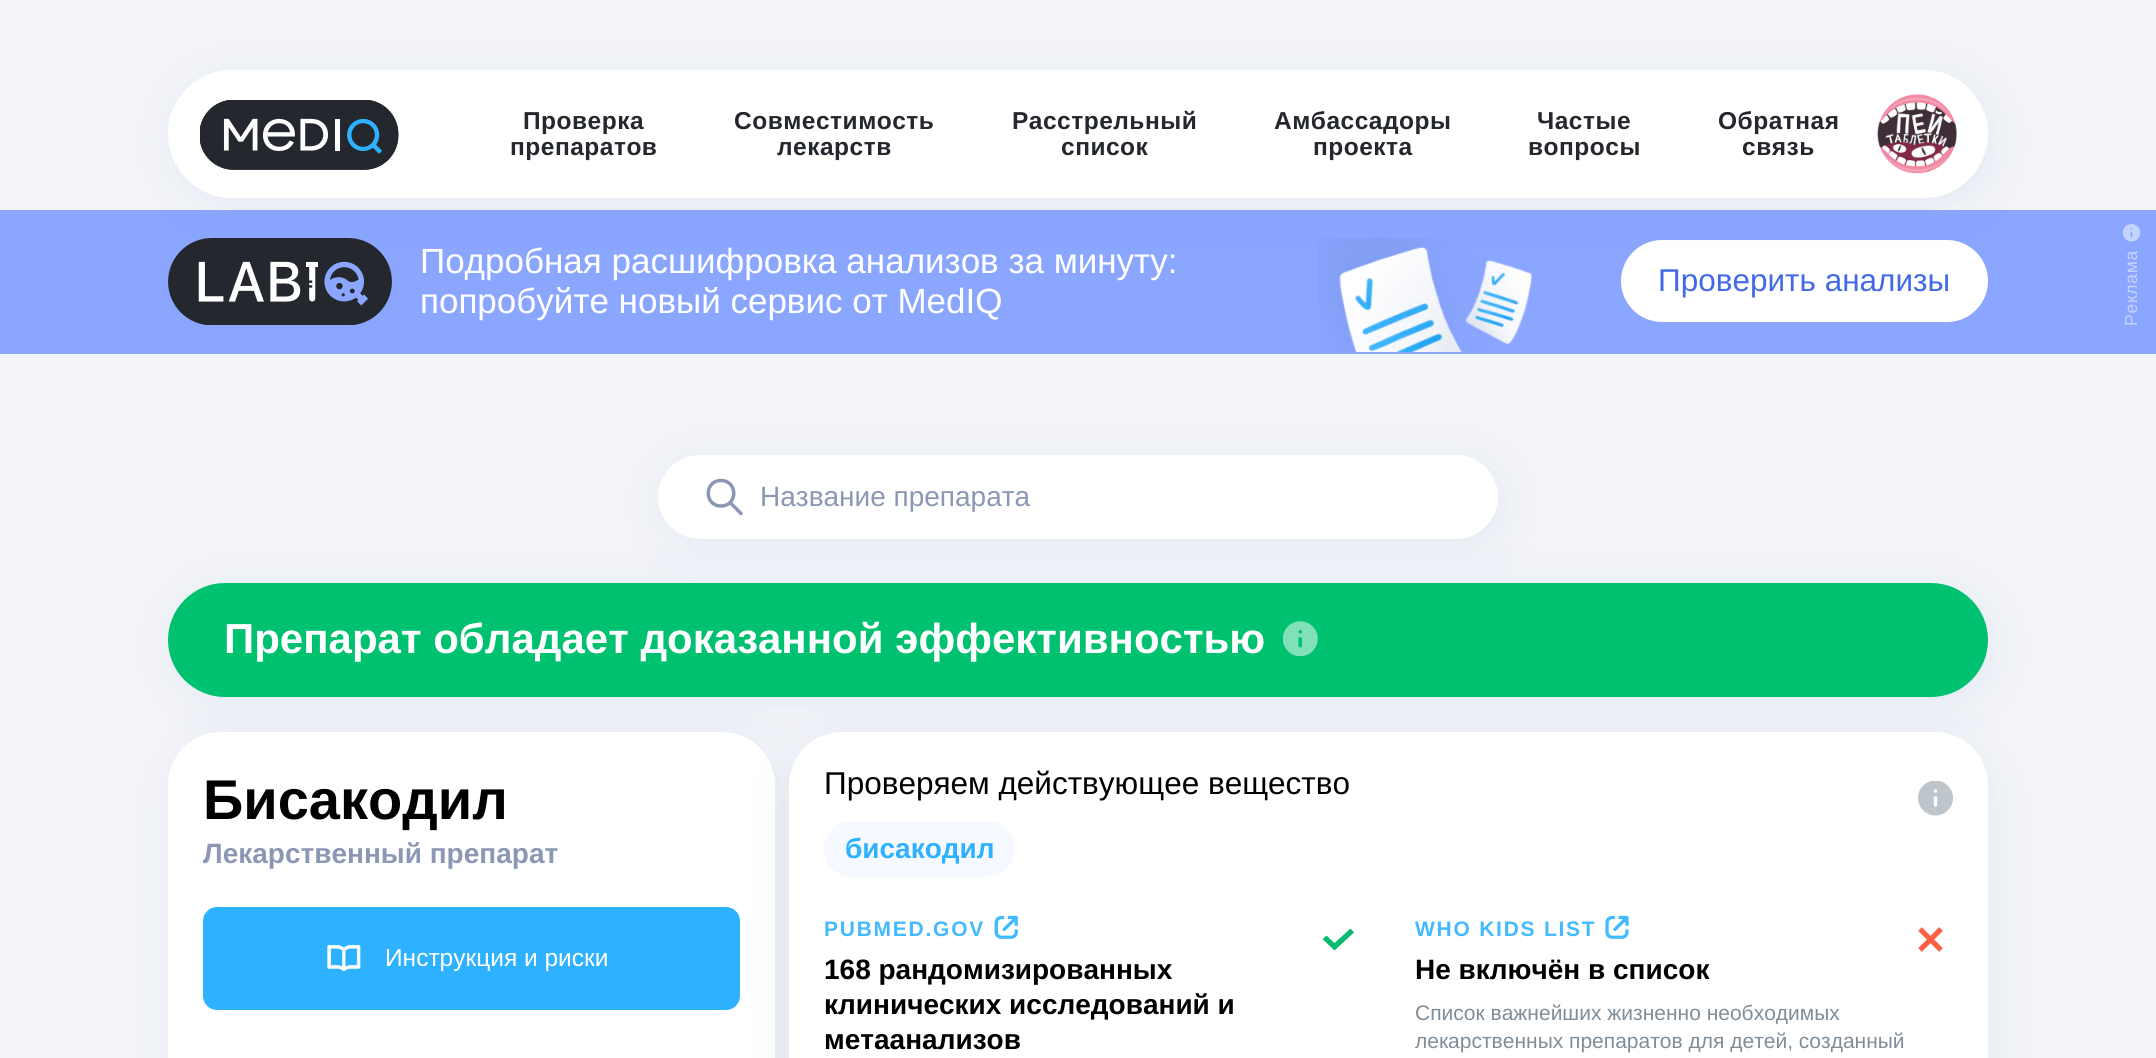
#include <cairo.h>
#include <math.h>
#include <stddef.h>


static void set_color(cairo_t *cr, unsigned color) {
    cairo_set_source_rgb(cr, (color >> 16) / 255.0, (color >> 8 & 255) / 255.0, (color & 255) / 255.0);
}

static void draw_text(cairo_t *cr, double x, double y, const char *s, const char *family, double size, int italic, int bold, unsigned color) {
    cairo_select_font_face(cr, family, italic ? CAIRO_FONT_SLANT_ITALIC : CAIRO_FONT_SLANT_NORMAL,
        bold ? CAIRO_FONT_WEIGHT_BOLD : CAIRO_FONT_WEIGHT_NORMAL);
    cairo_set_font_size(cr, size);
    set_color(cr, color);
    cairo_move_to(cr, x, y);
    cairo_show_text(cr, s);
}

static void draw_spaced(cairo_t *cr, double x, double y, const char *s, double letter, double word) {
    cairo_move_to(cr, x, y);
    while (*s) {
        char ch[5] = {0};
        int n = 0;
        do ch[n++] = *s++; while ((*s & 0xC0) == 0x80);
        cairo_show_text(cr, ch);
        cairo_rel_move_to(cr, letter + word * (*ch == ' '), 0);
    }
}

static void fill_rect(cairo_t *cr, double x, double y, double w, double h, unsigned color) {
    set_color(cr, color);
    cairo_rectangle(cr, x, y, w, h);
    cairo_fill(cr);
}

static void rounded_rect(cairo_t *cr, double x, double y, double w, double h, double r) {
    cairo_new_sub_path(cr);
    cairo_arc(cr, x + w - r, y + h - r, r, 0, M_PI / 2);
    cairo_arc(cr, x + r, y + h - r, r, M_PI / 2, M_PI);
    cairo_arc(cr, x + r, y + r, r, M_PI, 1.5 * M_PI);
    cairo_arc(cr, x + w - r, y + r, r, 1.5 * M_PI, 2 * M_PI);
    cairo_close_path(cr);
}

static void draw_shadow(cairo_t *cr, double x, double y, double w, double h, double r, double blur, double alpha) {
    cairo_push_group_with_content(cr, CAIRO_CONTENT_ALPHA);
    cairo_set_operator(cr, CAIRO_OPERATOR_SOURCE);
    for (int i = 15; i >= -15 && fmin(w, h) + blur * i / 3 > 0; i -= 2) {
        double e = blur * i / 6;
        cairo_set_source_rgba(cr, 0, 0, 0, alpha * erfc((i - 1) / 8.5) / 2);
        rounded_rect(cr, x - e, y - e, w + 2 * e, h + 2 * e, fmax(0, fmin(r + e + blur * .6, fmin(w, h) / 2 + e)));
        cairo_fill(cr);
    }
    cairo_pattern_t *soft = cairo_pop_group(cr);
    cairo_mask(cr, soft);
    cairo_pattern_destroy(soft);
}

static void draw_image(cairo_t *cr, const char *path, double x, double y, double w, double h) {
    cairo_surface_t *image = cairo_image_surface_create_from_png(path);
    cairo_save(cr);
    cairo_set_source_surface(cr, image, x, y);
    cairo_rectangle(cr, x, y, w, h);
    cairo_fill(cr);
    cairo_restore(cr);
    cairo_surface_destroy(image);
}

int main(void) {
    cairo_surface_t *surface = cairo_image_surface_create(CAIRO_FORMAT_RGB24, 2156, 1058);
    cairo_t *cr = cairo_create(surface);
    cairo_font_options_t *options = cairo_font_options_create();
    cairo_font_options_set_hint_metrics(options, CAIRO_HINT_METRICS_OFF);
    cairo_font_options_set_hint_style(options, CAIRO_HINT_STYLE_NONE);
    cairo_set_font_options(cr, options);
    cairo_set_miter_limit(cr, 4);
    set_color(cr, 0xF3F5FA);
    cairo_paint(cr);
    fill_rect(cr, 0, 210, 2156, 144, 0x8BA6FF);
    draw_image(cr, "assets/img3.png", 168, 238, 224, 87);
    draw_image(cr, "assets/img4.png", 1318, 238, 214, 114);
    set_color(cr, 0xFFFFFF);
    rounded_rect(cr, 1621, 240, 367, 82, 41);
    cairo_fill(cr);
    set_color(cr, 0x00274B);
    draw_shadow(cr, 173, 77, 1820, 128, 64, 29, 0.06);
    set_color(cr, 0xFFFFFF);
    rounded_rect(cr, 168, 70, 1820, 128, 64);
    cairo_fill(cr);
    draw_image(cr, "assets/img1.png", 200, 100, 199, 70);
    cairo_select_font_face(cr, "Liberation Sans", CAIRO_FONT_SLANT_NORMAL, CAIRO_FONT_WEIGHT_BOLD);
    cairo_set_font_size(cr, 24.5);
    set_color(cr, 0x24272E);
    draw_spaced(cr, 523, 129, "Проверка", 0.5, 0);
    draw_spaced(cr, 510, 155, "препаратов", 0.5, 0);
    draw_spaced(cr, 734, 129, "Совместимость", 0.5, 0);
    draw_spaced(cr, 777, 155, "лекарств", 0.5, 0);
    draw_spaced(cr, 1012, 129, "Расстрельный", 0.5, 0);
    draw_spaced(cr, 1061, 155, "список", 0.5, 0);
    draw_spaced(cr, 1274, 129, "Амбассадоры", 0.5, 0);
    draw_spaced(cr, 1313, 155, "проекта", 0.5, 0);
    draw_spaced(cr, 1537, 129, "Частые", 0.5, 0);
    draw_spaced(cr, 1528, 155, "вопросы", 0.5, 0);
    draw_spaced(cr, 1718, 129, "Обратная", 0.5, 0);
    draw_spaced(cr, 1742, 155, "связь", 0.5, 0);
    draw_image(cr, "assets/img2.png", 1877, 94, 80, 80);
    draw_text(cr, 420, 273, "Подробная расшифровка анализов за минуту:", "Liberation Sans", 35, 0, 0, 0xFFFFFF);
    draw_text(cr, 420, 313, "попробуйте новый сервис от MedIQ", "Liberation Sans", 35, 0, 0, 0xFFFFFF);
    draw_text(cr, 1658, 291, "Проверить анализы", "Liberation Sans", 31.5, 0, 0, 0x4369E9);
    draw_image(cr, "assets/img5.png", 2123, 224, 17, 18);
    cairo_set_font_size(cr, 17.5);
    set_color(cr, 0xC5D3FF);
    cairo_save(cr);
    cairo_translate(cr, 2137, 326);
    cairo_rotate(cr, -90 * M_PI / 180);
    draw_spaced(cr, 0, 0, "Реклама", 0.75, 0);
    cairo_restore(cr);
    set_color(cr, 0x00274B);
    draw_shadow(cr, 173, 590, 1820, 114, 57, 29, 0.06);
    set_color(cr, 0x00C170);
    rounded_rect(cr, 168, 583, 1820, 114, 57);
    cairo_fill(cr);
    draw_image(cr, "assets/img6.png", 1283, 621, 35, 35);
    set_color(cr, 0x00274B);
    draw_shadow(cr, 663, 462, 840, 84, 42, 29, 0.06);
    set_color(cr, 0xFFFFFF);
    rounded_rect(cr, 658, 455, 840, 84, 42);
    cairo_fill(cr);
    cairo_new_path(cr);
    cairo_move_to(cr, 730, 502.5);
    cairo_line_to(cr, 741, 513.5);
    cairo_move_to(cr, 721, 506);
    cairo_curve_to(cr, 704, 506, 704, 480.5, 721, 480.5);
    cairo_curve_to(cr, 738, 480.5, 738, 506, 721, 506);
    cairo_close_path(cr);
    set_color(cr, 0x8B97B5);
    cairo_set_line_width(cr, 3.5);
    cairo_set_line_cap(cr, CAIRO_LINE_CAP_ROUND);
    cairo_set_line_join(cr, CAIRO_LINE_JOIN_ROUND);
    cairo_stroke(cr);
    draw_text(cr, 760, 506, "Название препарата", "Liberation Sans", 28, 0, 0, 0x8B97B5);
    draw_text(cr, 224, 653, "Препарат обладает доказанной эффективностью", "Liberation Sans", 42, 0, 1, 0xFFFFFF);
    set_color(cr, 0x00274B);
    draw_shadow(cr, 173, 739, 608, 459, 53, 29, 0.06);
    set_color(cr, 0xFFFFFF);
    rounded_rect(cr, 168, 732, 607, 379, 53);
    cairo_fill(cr);
    draw_text(cr, 203, 819, "Бисакодил", "Liberation Sans", 56, 0, 1, 0x000000);
    draw_text(cr, 203, 863, "Лекарственный препарат", "Liberation Sans", 28, 0, 1, 0x8B97B5);
    set_color(cr, 0x2EB2FF);
    rounded_rect(cr, 203, 907, 537, 103, 14);
    cairo_fill(cr);
    draw_image(cr, "assets/img7.png", 327, 945, 34, 27);
    draw_text(cr, 385, 966, "Инструкция и риски", "Liberation Sans", 24.5, 0, 0, 0xFFFFFF);
    set_color(cr, 0x00274B);
    draw_shadow(cr, 795, 739, 1198, 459, 53, 29, 0.06);
    set_color(cr, 0xFFFFFF);
    rounded_rect(cr, 789, 732, 1199, 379, 53);
    cairo_fill(cr);
    draw_text(cr, 824, 794, "Проверяем действующее вещество", "Liberation Sans", 31.5, 0, 0, 0x000000);
    draw_image(cr, "assets/img8.png", 1918, 781, 35, 35);
    set_color(cr, 0xF6F9FF);
    rounded_rect(cr, 824, 821, 191, 56, 28);
    cairo_fill(cr);
    draw_text(cr, 845, 858, "бисакодил", "Liberation Sans", 28, 0, 1, 0x2EB2FF);
    cairo_set_font_size(cr, 21);
    set_color(cr, 0x43BAFF);
    draw_spaced(cr, 824, 936, "PUBMED.GOV", 1.75, 0);
    draw_image(cr, "assets/img9.png", 994, 915, 24, 24);
    draw_text(cr, 824, 979, "168 рандомизированных", "Liberation Sans", 28, 0, 1, 0x000000);
    draw_text(cr, 824, 1014, "клинических исследований и", "Liberation Sans", 28, 0, 1, 0x000000);
    draw_text(cr, 824, 1049, "метаанализов", "Liberation Sans", 28, 0, 1, 0x000000);
    set_color(cr, 0x05BC70);
    cairo_set_fill_rule(cr, CAIRO_FILL_RULE_EVEN_ODD);
    cairo_new_path(cr);
    cairo_move_to(cr, 1354, 932.5);
    cairo_line_to(cr, 1334.5, 950.5);
    cairo_line_to(cr, 1322.5, 939);
    cairo_line_to(cr, 1326.5, 935.5);
    cairo_line_to(cr, 1334.5, 943);
    cairo_line_to(cr, 1350.5, 928.5);
    cairo_close_path(cr);
    cairo_fill(cr);
    cairo_set_font_size(cr, 21);
    set_color(cr, 0x43BAFF);
    draw_spaced(cr, 1415, 936, "WHO KIDS LIST", 1.75, 0);
    draw_image(cr, "assets/img10.png", 1605, 915, 24, 24);
    draw_text(cr, 1415, 979, "Не включён в список", "Liberation Sans", 28, 0, 1, 0x000000);
    cairo_new_path(cr);
    cairo_move_to(cr, 1920, 950);
    cairo_line_to(cr, 1941, 929);
    cairo_move_to(cr, 1941, 950);
    cairo_line_to(cr, 1920, 929);
    set_color(cr, 0xFF6043);
    cairo_set_line_width(cr, 5.2);
    cairo_set_line_cap(cr, CAIRO_LINE_CAP_BUTT);
    cairo_set_line_join(cr, CAIRO_LINE_JOIN_MITER);
    cairo_stroke(cr);
    draw_text(cr, 1415, 1020, "Список важнейших жизненно необходимых", "Liberation Sans", 21, 0, 0, 0x808D98);
    draw_text(cr, 1415, 1048, "лекарственных препаратов для детей, созданный", "Liberation Sans", 21, 0, 0, 0x808D98);
    cairo_surface_write_to_png(surface, "output.png");
    cairo_font_options_destroy(options);
    cairo_destroy(cr);
    cairo_surface_destroy(surface);
    return 0;
}
